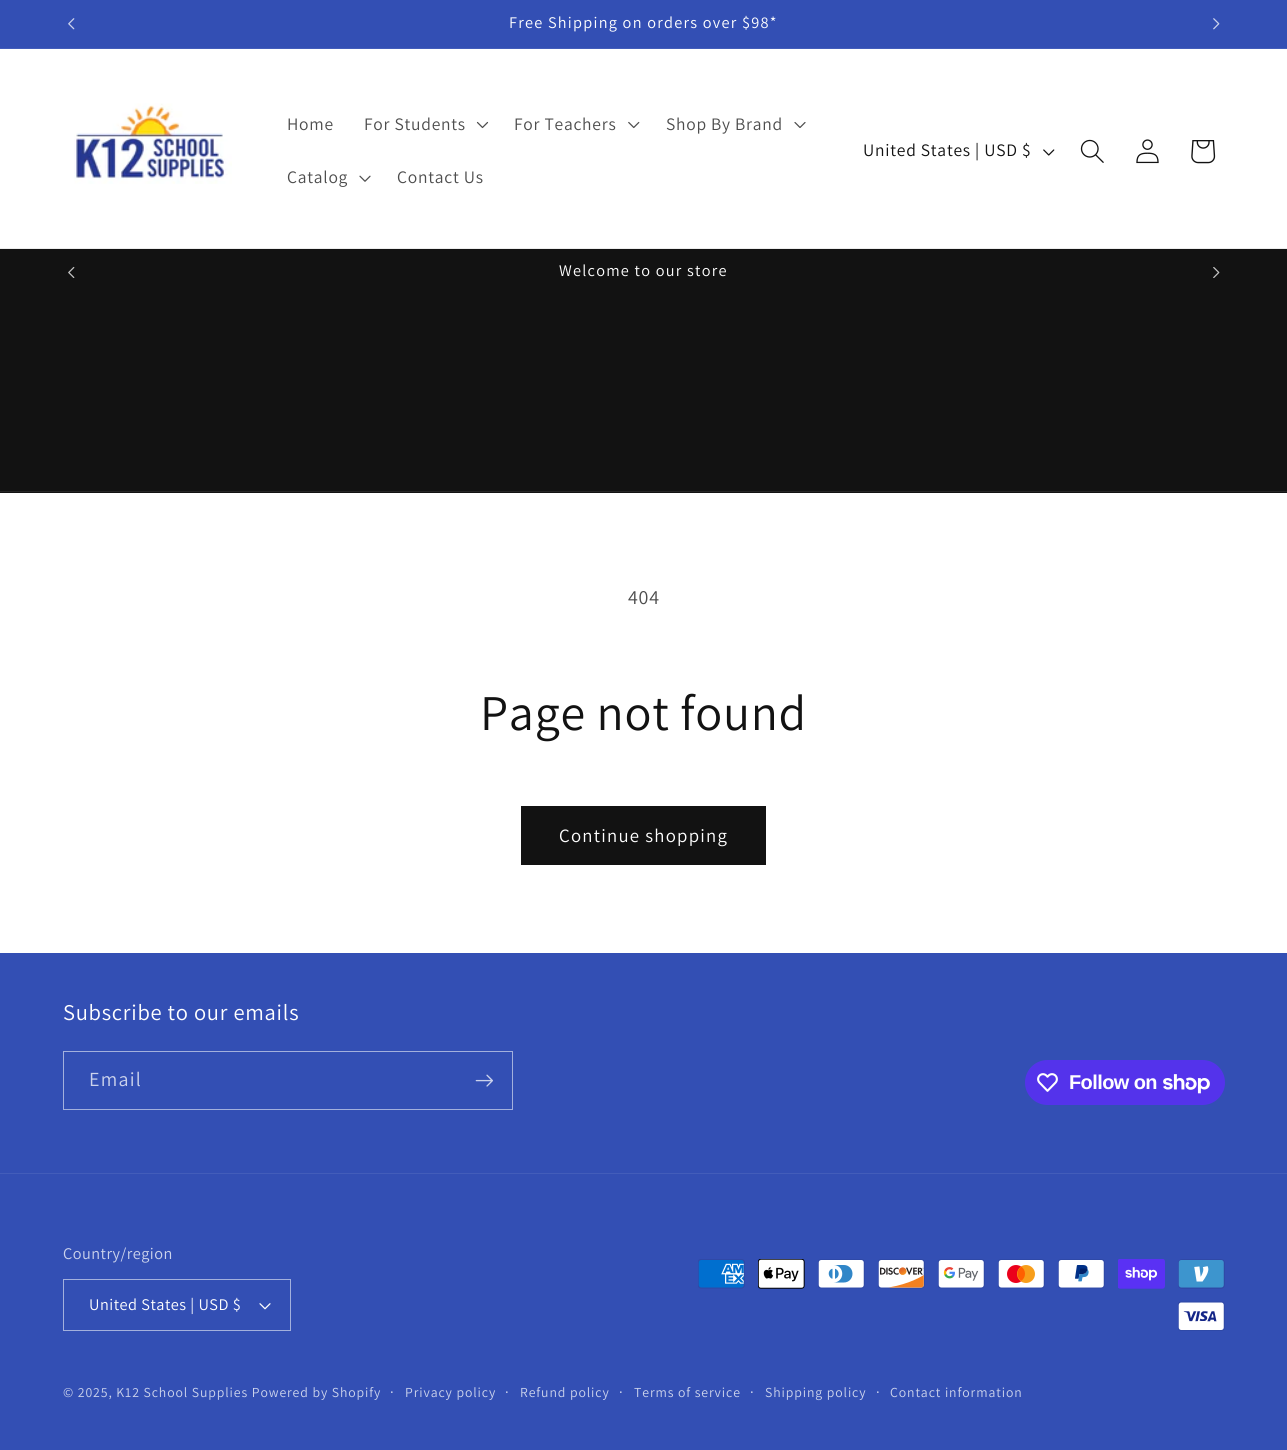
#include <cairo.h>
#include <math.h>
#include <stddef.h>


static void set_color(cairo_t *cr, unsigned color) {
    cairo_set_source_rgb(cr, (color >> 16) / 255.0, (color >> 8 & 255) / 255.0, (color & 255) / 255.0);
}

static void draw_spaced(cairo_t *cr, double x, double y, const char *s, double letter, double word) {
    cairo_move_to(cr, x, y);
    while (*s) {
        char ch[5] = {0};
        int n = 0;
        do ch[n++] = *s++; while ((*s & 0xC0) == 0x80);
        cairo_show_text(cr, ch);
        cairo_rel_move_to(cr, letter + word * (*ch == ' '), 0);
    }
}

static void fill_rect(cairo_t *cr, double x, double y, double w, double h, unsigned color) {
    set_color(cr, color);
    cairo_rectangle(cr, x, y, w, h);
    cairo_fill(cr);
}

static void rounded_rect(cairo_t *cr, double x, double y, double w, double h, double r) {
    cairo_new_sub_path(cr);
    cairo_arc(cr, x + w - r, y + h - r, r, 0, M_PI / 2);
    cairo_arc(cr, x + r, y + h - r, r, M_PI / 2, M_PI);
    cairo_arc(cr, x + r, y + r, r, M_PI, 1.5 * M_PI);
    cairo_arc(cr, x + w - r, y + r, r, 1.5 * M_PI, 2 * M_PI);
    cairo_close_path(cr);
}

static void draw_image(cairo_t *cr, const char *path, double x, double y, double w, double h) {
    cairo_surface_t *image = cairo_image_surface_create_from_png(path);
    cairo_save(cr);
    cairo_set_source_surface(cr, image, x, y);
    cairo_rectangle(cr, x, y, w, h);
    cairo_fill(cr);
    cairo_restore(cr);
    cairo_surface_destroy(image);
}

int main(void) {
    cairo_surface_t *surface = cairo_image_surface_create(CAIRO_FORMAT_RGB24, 1287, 1450);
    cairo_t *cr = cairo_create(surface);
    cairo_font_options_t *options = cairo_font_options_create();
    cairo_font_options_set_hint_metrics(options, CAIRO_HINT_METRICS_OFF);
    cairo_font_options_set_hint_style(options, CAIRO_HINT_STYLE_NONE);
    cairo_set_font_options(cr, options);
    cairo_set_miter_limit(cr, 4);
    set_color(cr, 0xFFFFFF);
    cairo_paint(cr);
    fill_rect(cr, 0, 0, 1287, 48, 0x334FB4);
    fill_rect(cr, 0, 48, 1287, 1, 0x435DBA);
    draw_image(cr, "assets/img1.png", 68, 18, 7, 12);
    cairo_select_font_face(cr, "Assistant", CAIRO_FONT_SLANT_NORMAL, CAIRO_FONT_WEIGHT_NORMAL);
    cairo_set_font_size(cr, 16.25);
    set_color(cr, 0xFFFFFF);
    draw_spaced(cr, 509, 28, "Free Shipping on orders over $98*", 1.25, 0);
    draw_image(cr, "assets/img2.png", 1213, 18, 7, 12);
    fill_rect(cr, 0, 248, 1287, 1, 0xECECEC);
    draw_image(cr, "assets/img3.png", 74, 103, 158, 81);
    cairo_set_font_size(cr, 17.5);
    set_color(cr, 0x4D4D4D);
    draw_spaced(cr, 287, 130, "Home", 0.75, 0);
    draw_spaced(cr, 364, 130, "For Students", 0.75, 0);
    draw_image(cr, "assets/img4.png", 476, 121, 13, 8);
    draw_spaced(cr, 514, 130, "For Teachers", 0.75, 0);
    draw_image(cr, "assets/img5.png", 628, 121, 12, 8);
    draw_spaced(cr, 666, 130, "Shop By Brand", 0.75, 0);
    draw_image(cr, "assets/img6.png", 794, 122, 12, 6);
    draw_spaced(cr, 287, 183, "Catalog", 0.75, 0);
    draw_image(cr, "assets/img7.png", 359, 175, 12, 7);
    draw_spaced(cr, 397, 183, "Contact Us", 0.75, 0);
    set_color(cr, 0x121212);
    draw_spaced(cr, 863, 156, "United States | USD $", 0.75, 0);
    draw_image(cr, "assets/img8.png", 1043, 149, 12, 7);
    draw_image(cr, "assets/img9.png", 1080, 139, 24, 24);
    draw_image(cr, "assets/img10.png", 1136, 139, 23, 25);
    draw_image(cr, "assets/img11.png", 1191, 140, 25, 24);
    fill_rect(cr, 0, 249, 1287, 244, 0x121212);
    fill_rect(cr, 0, 491, 1287, 1, 0x252525);
    draw_image(cr, "assets/img12.png", 68, 266, 7, 12);
    cairo_set_font_size(cr, 16.25);
    set_color(cr, 0xFFFFFF);
    draw_spaced(cr, 559, 276, "Welcome to our store", 1.25, 0);
    draw_image(cr, "assets/img13.png", 1213, 267, 7, 11);
    cairo_set_font_size(cr, 20);
    set_color(cr, 0x4D4D4D);
    draw_spaced(cr, 628, 604, "404", 0.75, 0);
    cairo_set_font_size(cr, 50);
    set_color(cr, 0x121212);
    draw_spaced(cr, 480, 730, "Page not found", 0.75, 0);
    fill_rect(cr, 521, 806, 245, 59, 0x121212);
    cairo_set_font_size(cr, 18.75);
    set_color(cr, 0xFFFFFF);
    draw_spaced(cr, 559, 842, "Continue shopping", 1.25, 0);
    fill_rect(cr, 0, 953, 1287, 497, 0x334FB4);
    cairo_set_font_size(cr, 22.5);
    set_color(cr, 0xFFFFFF);
    draw_spaced(cr, 63, 1020, "Subscribe to our emails", 0.75, 0);
    cairo_rectangle(cr, 63.5, 1051.5, 449, 58);
    set_color(cr, 0xA3B0DD);
    cairo_set_line_width(cr, 1);
    cairo_stroke(cr);
    cairo_set_font_size(cr, 20);
    set_color(cr, 0xCCD3EC);
    draw_spaced(cr, 89, 1086, "Email", 1.25, 0);
    draw_image(cr, "assets/img14.png", 475, 1074, 18, 13);
    set_color(cr, 0x5433EB);
    rounded_rect(cr, 1025, 1060, 200, 45, 22.5);
    cairo_fill(cr);
    draw_image(cr, "assets/img15.png", 1037, 1073, 21, 19);
    cairo_select_font_face(cr, "Liberation Sans", CAIRO_FONT_SLANT_NORMAL, CAIRO_FONT_WEIGHT_BOLD);
    set_color(cr, 0xFFFFFF);
    draw_spaced(cr, 1069, 1089, "Follow on", -0.6, 0);
    draw_image(cr, "assets/img16.png", 1163, 1074, 47, 20);
    fill_rect(cr, 0, 1173, 1287, 1, 0x435DBA);
    cairo_select_font_face(cr, "Assistant", CAIRO_FONT_SLANT_NORMAL, CAIRO_FONT_WEIGHT_NORMAL);
    cairo_set_font_size(cr, 16.25);
    set_color(cr, 0xCCD3EC);
    draw_spaced(cr, 63, 1259, "Country/region", 0.5, 0);
    draw_image(cr, "assets/img17.png", 259, 1303, 12, 7);
    cairo_rectangle(cr, 63.5, 1279.5, 227, 51);
    set_color(cr, 0xA3B0DD);
    cairo_stroke(cr);
    set_color(cr, 0xFFFFFF);
    draw_spaced(cr, 89, 1310, "United States | USD $", 0.5, 0);
    draw_image(cr, "assets/img18.png", 698, 1259, 47, 30);
    draw_image(cr, "assets/img19.png", 758, 1259, 47, 30);
    draw_image(cr, "assets/img20.png", 818, 1259, 47, 30);
    draw_image(cr, "assets/img21.png", 878, 1259, 47, 30);
    draw_image(cr, "assets/img22.png", 938, 1259, 47, 30);
    draw_image(cr, "assets/img23.png", 998, 1259, 47, 30);
    draw_image(cr, "assets/img24.png", 1058, 1259, 47, 30);
    draw_image(cr, "assets/img25.png", 1118, 1259, 47, 30);
    draw_image(cr, "assets/img26.png", 1178, 1259, 47, 30);
    draw_image(cr, "assets/img27.png", 1178, 1301, 47, 30);
    cairo_set_font_size(cr, 13.75);
    set_color(cr, 0xCCD3EC);
    draw_spaced(cr, 63, 1397, "© 2025, K12 School Supplies Powered by Shopify", 0.9, 0);
    cairo_set_font_size(cr, 15);
    draw_spaced(cr, 390, 1397, "·", 0.9, 0);
    cairo_set_font_size(cr, 13.75);
    draw_spaced(cr, 405, 1397, "Privacy policy", 0.9, 0);
    cairo_set_font_size(cr, 15);
    draw_spaced(cr, 505, 1397, "·", 0.9, 0);
    cairo_set_font_size(cr, 13.75);
    draw_spaced(cr, 520, 1397, "Refund policy", 0.9, 0);
    cairo_set_font_size(cr, 15);
    draw_spaced(cr, 619, 1397, "·", 0.9, 0);
    cairo_set_font_size(cr, 13.75);
    draw_spaced(cr, 634, 1397, "Terms of service", 0.9, 0);
    cairo_set_font_size(cr, 15);
    draw_spaced(cr, 750, 1397, "·", 0.9, 0);
    cairo_set_font_size(cr, 13.75);
    draw_spaced(cr, 765, 1397, "Shipping policy", 0.9, 0);
    cairo_set_font_size(cr, 15);
    draw_spaced(cr, 876, 1397, "·", 0.9, 0);
    cairo_set_font_size(cr, 13.75);
    draw_spaced(cr, 890, 1397, "Contact information", 0.9, 0);
    cairo_surface_write_to_png(surface, "output.png");
    cairo_font_options_destroy(options);
    cairo_destroy(cr);
    cairo_surface_destroy(surface);
    return 0;
}
